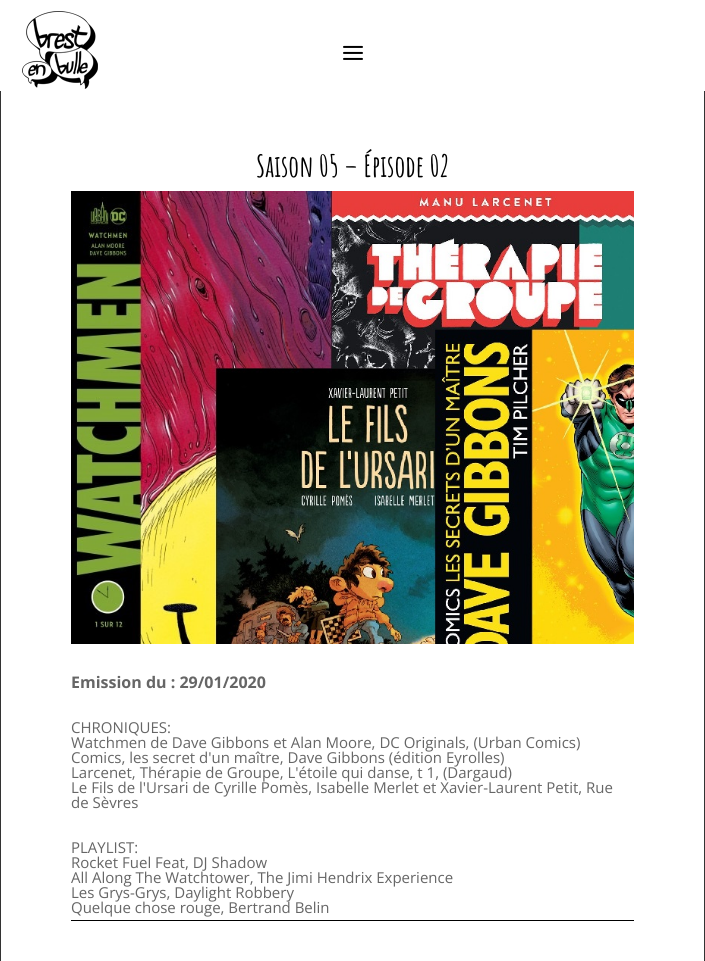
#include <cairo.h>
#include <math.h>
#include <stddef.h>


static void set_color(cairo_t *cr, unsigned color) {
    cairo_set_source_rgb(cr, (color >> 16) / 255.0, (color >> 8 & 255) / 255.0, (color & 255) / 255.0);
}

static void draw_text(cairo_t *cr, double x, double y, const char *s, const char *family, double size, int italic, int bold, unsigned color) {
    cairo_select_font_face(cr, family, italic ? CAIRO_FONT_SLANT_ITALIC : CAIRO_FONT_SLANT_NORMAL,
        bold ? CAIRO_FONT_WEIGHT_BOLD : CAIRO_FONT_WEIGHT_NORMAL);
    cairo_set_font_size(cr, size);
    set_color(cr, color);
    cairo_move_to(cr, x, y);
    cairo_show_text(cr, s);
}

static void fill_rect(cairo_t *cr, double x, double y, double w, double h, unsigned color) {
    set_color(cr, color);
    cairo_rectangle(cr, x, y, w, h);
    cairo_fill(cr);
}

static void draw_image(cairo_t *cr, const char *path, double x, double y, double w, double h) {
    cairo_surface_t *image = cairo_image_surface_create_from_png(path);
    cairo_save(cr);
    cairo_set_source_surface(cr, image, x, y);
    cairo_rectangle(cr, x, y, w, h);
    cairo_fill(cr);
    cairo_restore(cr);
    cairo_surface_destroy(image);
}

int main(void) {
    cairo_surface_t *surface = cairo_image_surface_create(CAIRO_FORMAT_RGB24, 705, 961);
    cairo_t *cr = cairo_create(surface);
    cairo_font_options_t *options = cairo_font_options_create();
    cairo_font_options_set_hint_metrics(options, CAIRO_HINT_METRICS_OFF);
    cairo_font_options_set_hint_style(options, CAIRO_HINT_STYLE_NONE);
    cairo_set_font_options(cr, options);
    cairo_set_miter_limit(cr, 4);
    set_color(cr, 0xFFFFFF);
    cairo_paint(cr);
    cairo_rectangle(cr, 0.5, 90.5, 704, 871);
    set_color(cr, 0x333333);
    cairo_set_line_width(cr, 1);
    cairo_stroke(cr);
    fill_rect(cr, 0, 90, 705, 1, 0xFFFFFF);
    draw_image(cr, "assets/img1.png", 22, 11, 76, 78);
    draw_image(cr, "assets/img2.png", 343, 45, 20, 15);
    draw_text(cr, 256, 177, "Saison 05 – Épisode 02", "Amatic SC", 30, 0, 1, 0x000000);
    draw_image(cr, "assets/img3.png", 71, 191, 563, 453);
    draw_text(cr, 71, 688, "Emission du : 29/01/2020", "Open Sans", 16, 0, 1, 0x666666);
    draw_text(cr, 71, 733, "CHRONIQUES:", "Open Sans", 15, 0, 0, 0x666666);
    draw_text(cr, 71, 748, "Watchmen de Dave Gibbons et Alan Moore, DC Originals, (Urban Comics)", "Open Sans", 15, 0, 0, 0x666666);
    draw_text(cr, 71, 763, "Comics, les secret d'un maître, Dave Gibbons (édition Eyrolles)", "Open Sans", 15, 0, 0, 0x666666);
    draw_text(cr, 71, 778, "Larcenet, Thérapie de Groupe, L'étoile qui danse, t 1, (Dargaud)", "Open Sans", 15, 0, 0, 0x666666);
    draw_text(cr, 71, 793, "Le Fils de l'Ursari de Cyrille Pomès, Isabelle Merlet et Xavier-Laurent Petit, Rue", "Open Sans", 15, 0, 0, 0x666666);
    draw_text(cr, 71, 808, "de Sèvres", "Open Sans", 15, 0, 0, 0x666666);
    draw_text(cr, 71, 853, "PLAYLIST:", "Open Sans", 15, 0, 0, 0x666666);
    draw_text(cr, 71, 868, "Rocket Fuel Feat, DJ Shadow", "Open Sans", 15, 0, 0, 0x666666);
    draw_text(cr, 71, 883, "All Along The Watchtower, The Jimi Hendrix Experience", "Open Sans", 15, 0, 0, 0x666666);
    draw_text(cr, 71, 898, "Les Grys-Grys, Daylight Robbery", "Open Sans", 15, 0, 0, 0x666666);
    draw_text(cr, 71, 913, "Quelque chose rouge, Bertrand Belin", "Open Sans", 15, 0, 0, 0x666666);
    fill_rect(cr, 71, 920, 563, 1, 0x000000);
    cairo_surface_write_to_png(surface, "output.png");
    cairo_font_options_destroy(options);
    cairo_destroy(cr);
    cairo_surface_destroy(surface);
    return 0;
}
